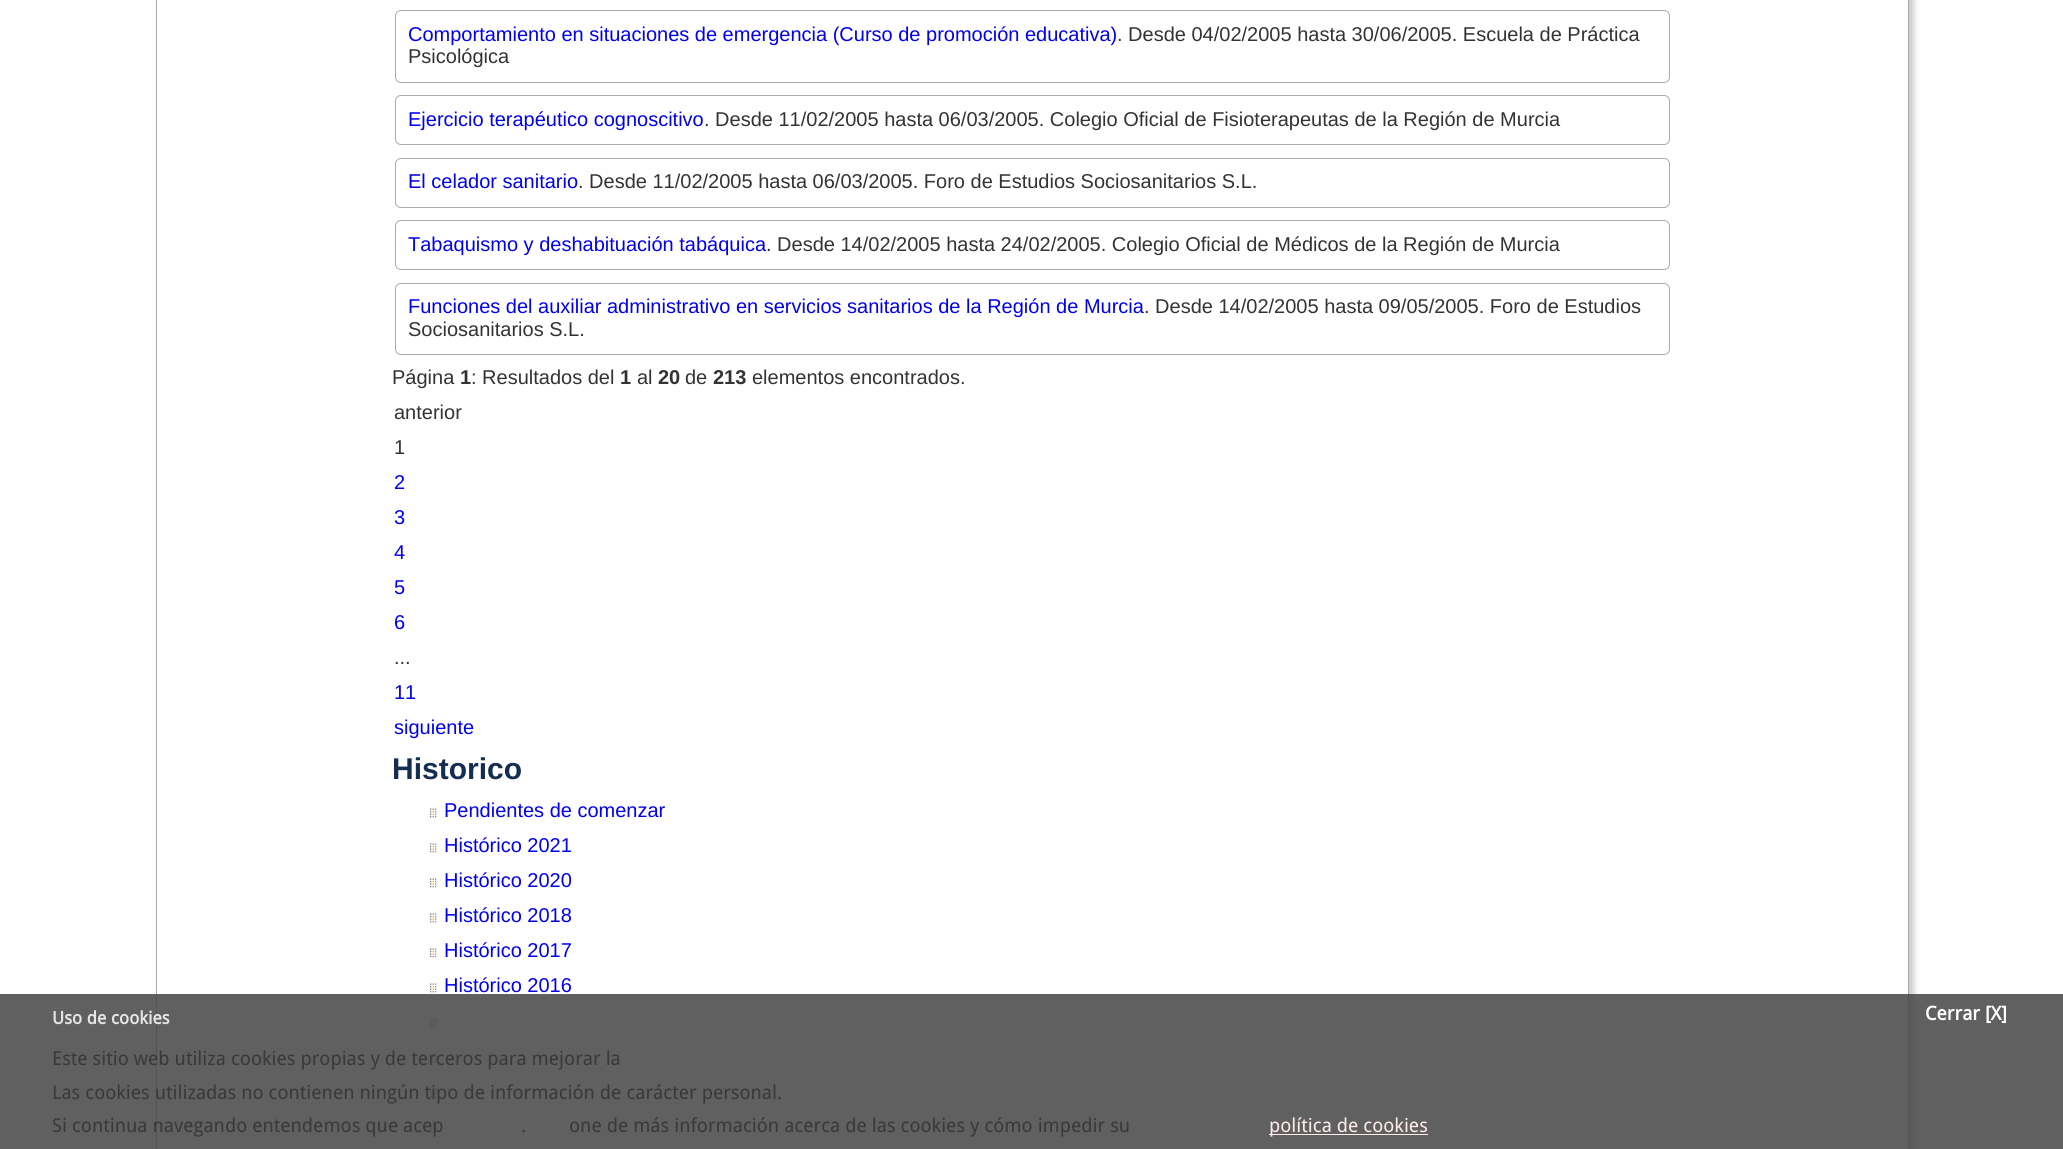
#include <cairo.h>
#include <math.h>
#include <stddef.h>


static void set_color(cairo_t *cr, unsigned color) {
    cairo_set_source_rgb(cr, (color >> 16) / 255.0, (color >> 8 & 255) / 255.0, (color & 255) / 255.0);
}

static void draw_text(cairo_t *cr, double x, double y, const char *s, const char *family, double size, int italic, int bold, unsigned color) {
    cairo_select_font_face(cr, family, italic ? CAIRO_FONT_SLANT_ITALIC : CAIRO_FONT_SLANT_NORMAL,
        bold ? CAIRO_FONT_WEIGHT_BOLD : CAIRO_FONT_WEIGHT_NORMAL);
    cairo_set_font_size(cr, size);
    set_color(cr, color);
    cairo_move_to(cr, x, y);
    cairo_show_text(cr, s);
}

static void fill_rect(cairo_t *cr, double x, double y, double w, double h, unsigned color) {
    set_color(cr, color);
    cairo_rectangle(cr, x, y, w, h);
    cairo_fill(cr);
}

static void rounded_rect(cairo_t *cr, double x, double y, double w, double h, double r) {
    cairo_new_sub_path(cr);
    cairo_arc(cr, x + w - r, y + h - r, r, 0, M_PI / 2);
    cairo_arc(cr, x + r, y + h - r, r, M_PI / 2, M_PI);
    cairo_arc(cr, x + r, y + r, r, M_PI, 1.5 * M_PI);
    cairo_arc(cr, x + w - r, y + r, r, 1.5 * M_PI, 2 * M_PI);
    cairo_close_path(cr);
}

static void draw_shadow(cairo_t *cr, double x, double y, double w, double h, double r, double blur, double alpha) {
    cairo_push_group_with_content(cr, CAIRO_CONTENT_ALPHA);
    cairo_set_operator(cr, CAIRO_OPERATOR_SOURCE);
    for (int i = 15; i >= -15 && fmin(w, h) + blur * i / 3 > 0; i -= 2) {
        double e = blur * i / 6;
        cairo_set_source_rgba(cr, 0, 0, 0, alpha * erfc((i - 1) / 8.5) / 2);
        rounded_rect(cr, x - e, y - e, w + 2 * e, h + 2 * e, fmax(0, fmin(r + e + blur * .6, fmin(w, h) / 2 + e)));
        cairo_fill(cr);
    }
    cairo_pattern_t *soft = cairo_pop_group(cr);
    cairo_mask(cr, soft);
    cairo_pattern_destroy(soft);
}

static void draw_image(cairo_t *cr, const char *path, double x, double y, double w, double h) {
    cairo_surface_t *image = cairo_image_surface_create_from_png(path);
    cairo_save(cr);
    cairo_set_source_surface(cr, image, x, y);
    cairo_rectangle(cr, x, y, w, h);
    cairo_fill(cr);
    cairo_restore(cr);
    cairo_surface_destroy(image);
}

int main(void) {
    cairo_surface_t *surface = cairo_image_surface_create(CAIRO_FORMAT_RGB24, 2063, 1149);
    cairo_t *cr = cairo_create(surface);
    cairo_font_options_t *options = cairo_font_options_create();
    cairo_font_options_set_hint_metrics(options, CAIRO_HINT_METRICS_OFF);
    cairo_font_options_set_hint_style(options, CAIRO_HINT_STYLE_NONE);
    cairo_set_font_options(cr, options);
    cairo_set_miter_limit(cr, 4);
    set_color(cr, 0xFFFFFF);
    cairo_paint(cr);
    cairo_save(cr);
    cairo_set_fill_rule(cr, CAIRO_FILL_RULE_EVEN_ODD);
    cairo_new_path(cr);
    cairo_move_to(cr, 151, 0);
    cairo_line_to(cr, 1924, 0);
    cairo_line_to(cr, 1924, 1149);
    cairo_line_to(cr, 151, 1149);
    cairo_close_path(cr);
    cairo_move_to(cr, 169, -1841);
    cairo_line_to(cr, 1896, -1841);
    cairo_curve_to(cr, 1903, -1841, 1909, -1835, 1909, -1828);
    cairo_line_to(cr, 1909, 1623);
    cairo_curve_to(cr, 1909, 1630, 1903, 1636, 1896, 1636);
    cairo_line_to(cr, 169, 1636);
    cairo_curve_to(cr, 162, 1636, 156, 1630, 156, 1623);
    cairo_line_to(cr, 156, -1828);
    cairo_curve_to(cr, 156, -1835, 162, -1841, 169, -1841);
    cairo_close_path(cr);
    cairo_clip(cr);
    set_color(cr, 0xCCCCCC);
    draw_shadow(cr, 161, -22, 1753, 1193, 13, 3, 1);
    cairo_restore(cr);
    cairo_rectangle(cr, 156.5, -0.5, 1752, 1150);
    set_color(cr, 0xAAAAAA);
    cairo_set_line_width(cr, 1);
    cairo_stroke(cr);
    rounded_rect(cr, 395.5, 10.5, 1274, 72, 5.5);
    cairo_stroke(cr);
    draw_text(cr, 408, 41, "Comportamiento en situaciones de emergencia (Curso de promoción educativa)", "Liberation Sans", 20, 0, 0, 0x0000EE);
    draw_text(cr, 1117, 41, ". Desde 04/02/2005 hasta 30/06/2005. Escuela de Práctica", "Liberation Sans", 20, 0, 0, 0x333333);
    draw_text(cr, 408, 63, "Psicológica", "Liberation Sans", 20, 0, 0, 0x333333);
    rounded_rect(cr, 395.5, 95.5, 1274, 49, 5.5);
    set_color(cr, 0xAAAAAA);
    cairo_stroke(cr);
    draw_text(cr, 408, 126, "Ejercicio terapéutico cognoscitivo", "Liberation Sans", 20, 0, 0, 0x0000EE);
    draw_text(cr, 704, 126, ". Desde 11/02/2005 hasta 06/03/2005. Colegio Oficial de Fisioterapeutas de la Región de Murcia", "Liberation Sans", 20, 0, 0, 0x333333);
    rounded_rect(cr, 395.5, 158.5, 1274, 49, 5.5);
    set_color(cr, 0xAAAAAA);
    cairo_stroke(cr);
    draw_text(cr, 408, 188, "El celador sanitario", "Liberation Sans", 20, 0, 0, 0x0000EE);
    draw_text(cr, 578, 188, ". Desde 11/02/2005 hasta 06/03/2005. Foro de Estudios Sociosanitarios S.L.", "Liberation Sans", 20, 0, 0, 0x333333);
    rounded_rect(cr, 395.5, 220.5, 1274, 49, 5.5);
    set_color(cr, 0xAAAAAA);
    cairo_stroke(cr);
    draw_text(cr, 408, 251, "Tabaquismo y deshabituación tabáquica", "Liberation Sans", 20, 0, 0, 0x0000EE);
    draw_text(cr, 766, 251, ". Desde 14/02/2005 hasta 24/02/2005. Colegio Oficial de Médicos de la Región de Murcia", "Liberation Sans", 20, 0, 0, 0x333333);
    rounded_rect(cr, 395.5, 283.5, 1274, 71, 5.5);
    set_color(cr, 0xAAAAAA);
    cairo_stroke(cr);
    draw_text(cr, 408, 313, "Funciones del auxiliar administrativo en servicios sanitarios de la Región de Murcia", "Liberation Sans", 20, 0, 0, 0x0000EE);
    draw_text(cr, 1144, 313, ". Desde 14/02/2005 hasta 09/05/2005. Foro de Estudios", "Liberation Sans", 20, 0, 0, 0x333333);
    draw_text(cr, 408, 336, "Sociosanitarios S.L.", "Liberation Sans", 20, 0, 0, 0x333333);
    draw_text(cr, 392, 384, "Página", "Liberation Sans", 20, 0, 0, 0x333333);
    draw_text(cr, 460, 384, "1", "Liberation Sans", 20, 0, 1, 0x333333);
    draw_text(cr, 471, 384, ": Resultados del", "Liberation Sans", 20, 0, 0, 0x333333);
    draw_text(cr, 620, 384, "1", "Liberation Sans", 20, 0, 1, 0x333333);
    draw_text(cr, 637, 384, "al", "Liberation Sans", 20, 0, 0, 0x333333);
    draw_text(cr, 658, 384, "20", "Liberation Sans", 20, 0, 1, 0x333333);
    draw_text(cr, 685, 384, "de", "Liberation Sans", 20, 0, 0, 0x333333);
    draw_text(cr, 713, 384, "213", "Liberation Sans", 20, 0, 1, 0x333333);
    draw_text(cr, 752, 384, "elementos encontrados.", "Liberation Sans", 20, 0, 0, 0x333333);
    draw_text(cr, 394, 419, "anterior", "Liberation Sans", 20, 0, 0, 0x333333);
    draw_text(cr, 394, 454, "1", "Liberation Sans", 20, 0, 0, 0x333333);
    draw_text(cr, 394, 489, "2", "Liberation Sans", 20, 0, 0, 0x0000EE);
    draw_text(cr, 394, 524, "3", "Liberation Sans", 20, 0, 0, 0x0000EE);
    draw_text(cr, 394, 559, "4", "Liberation Sans", 20, 0, 0, 0x0000EE);
    draw_text(cr, 394, 594, "5", "Liberation Sans", 20, 0, 0, 0x0000EE);
    draw_text(cr, 394, 629, "6", "Liberation Sans", 20, 0, 0, 0x0000EE);
    draw_text(cr, 394, 664, "...", "Liberation Sans", 20, 0, 0, 0x333333);
    draw_text(cr, 394, 699, "11", "Liberation Sans", 20, 0, 0, 0x0000EE);
    draw_text(cr, 394, 734, "siguiente", "Liberation Sans", 20, 0, 0, 0x0000EE);
    draw_text(cr, 392, 779, "Historico", "Liberation Sans", 30, 0, 1, 0x142D53);
    draw_image(cr, "assets/img1.png", 430, 808, 7, 10);
    draw_text(cr, 444, 817, "Pendientes de comenzar", "Liberation Sans", 20, 0, 0, 0x0000EE);
    draw_image(cr, "assets/img1.png", 430, 843, 7, 10);
    draw_text(cr, 444, 852, "Histórico 2021", "Liberation Sans", 20, 0, 0, 0x0000EE);
    draw_image(cr, "assets/img1.png", 430, 878, 7, 10);
    draw_text(cr, 444, 887, "Histórico 2020", "Liberation Sans", 20, 0, 0, 0x0000EE);
    draw_image(cr, "assets/img1.png", 430, 913, 7, 10);
    draw_text(cr, 444, 922, "Histórico 2018", "Liberation Sans", 20, 0, 0, 0x0000EE);
    draw_image(cr, "assets/img1.png", 430, 948, 7, 10);
    draw_text(cr, 444, 957, "Histórico 2017", "Liberation Sans", 20, 0, 0, 0x0000EE);
    draw_image(cr, "assets/img1.png", 430, 983, 7, 10);
    draw_text(cr, 444, 992, "Histórico 2016", "Liberation Sans", 20, 0, 0, 0x0000EE);
    draw_image(cr, "assets/img1.png", 430, 1018, 7, 10);
    draw_image(cr, "assets/img1.png", 430, 1053, 7, 10);
    draw_image(cr, "assets/img1.png", 430, 1088, 7, 10);
    draw_image(cr, "assets/img1.png", 430, 1123, 7, 10);
    cairo_set_source_rgba(cr, 0.267, 0.267, 0.267, 0.85);
    cairo_rectangle(cr, 0, 994, 2063, 155);
    cairo_fill(cr);
    draw_text(cr, 52, 1024, "Uso de cookies", "Droid Sans", 17.5, 0, 1, 0xE7E7E7);
    draw_text(cr, 1925, 1020, "Cerrar [X]", "Droid Sans", 19.2, 0, 1, 0xFFFFFF);
    draw_text(cr, 52, 1065, "Este sitio web utiliza cookies propias y de terceros para mejorar la", "Droid Sans", 19.2, 0, 0, 0x39393A);
    draw_text(cr, 52, 1099, "Las cookies utilizadas no contienen ningún tipo de información de carácter personal.", "Droid Sans", 19.2, 0, 0, 0x39393A);
    draw_text(cr, 52, 1132, "Si continua navegando entendemos que", "Droid Sans", 19.2, 0, 0, 0x39393A);
    draw_text(cr, 403, 1132, "acep", "Droid Sans", 19.2, 0, 0, 0x39393A);
    draw_text(cr, 521, 1132, ".", "Droid Sans", 19.2, 0, 0, 0x39393A);
    draw_text(cr, 569, 1132, "one de más información acerca de las cookies y cómo impedir su", "Droid Sans", 19.2, 0, 0, 0x39393A);
    fill_rect(cr, 1269, 1134, 159, 1, 0xFFEBEB);
    draw_text(cr, 1269, 1132, "política de cookies", "Droid Sans", 19.2, 0, 0, 0xFFEBEB);
    cairo_surface_write_to_png(surface, "output.png");
    cairo_font_options_destroy(options);
    cairo_destroy(cr);
    cairo_surface_destroy(surface);
    return 0;
}
